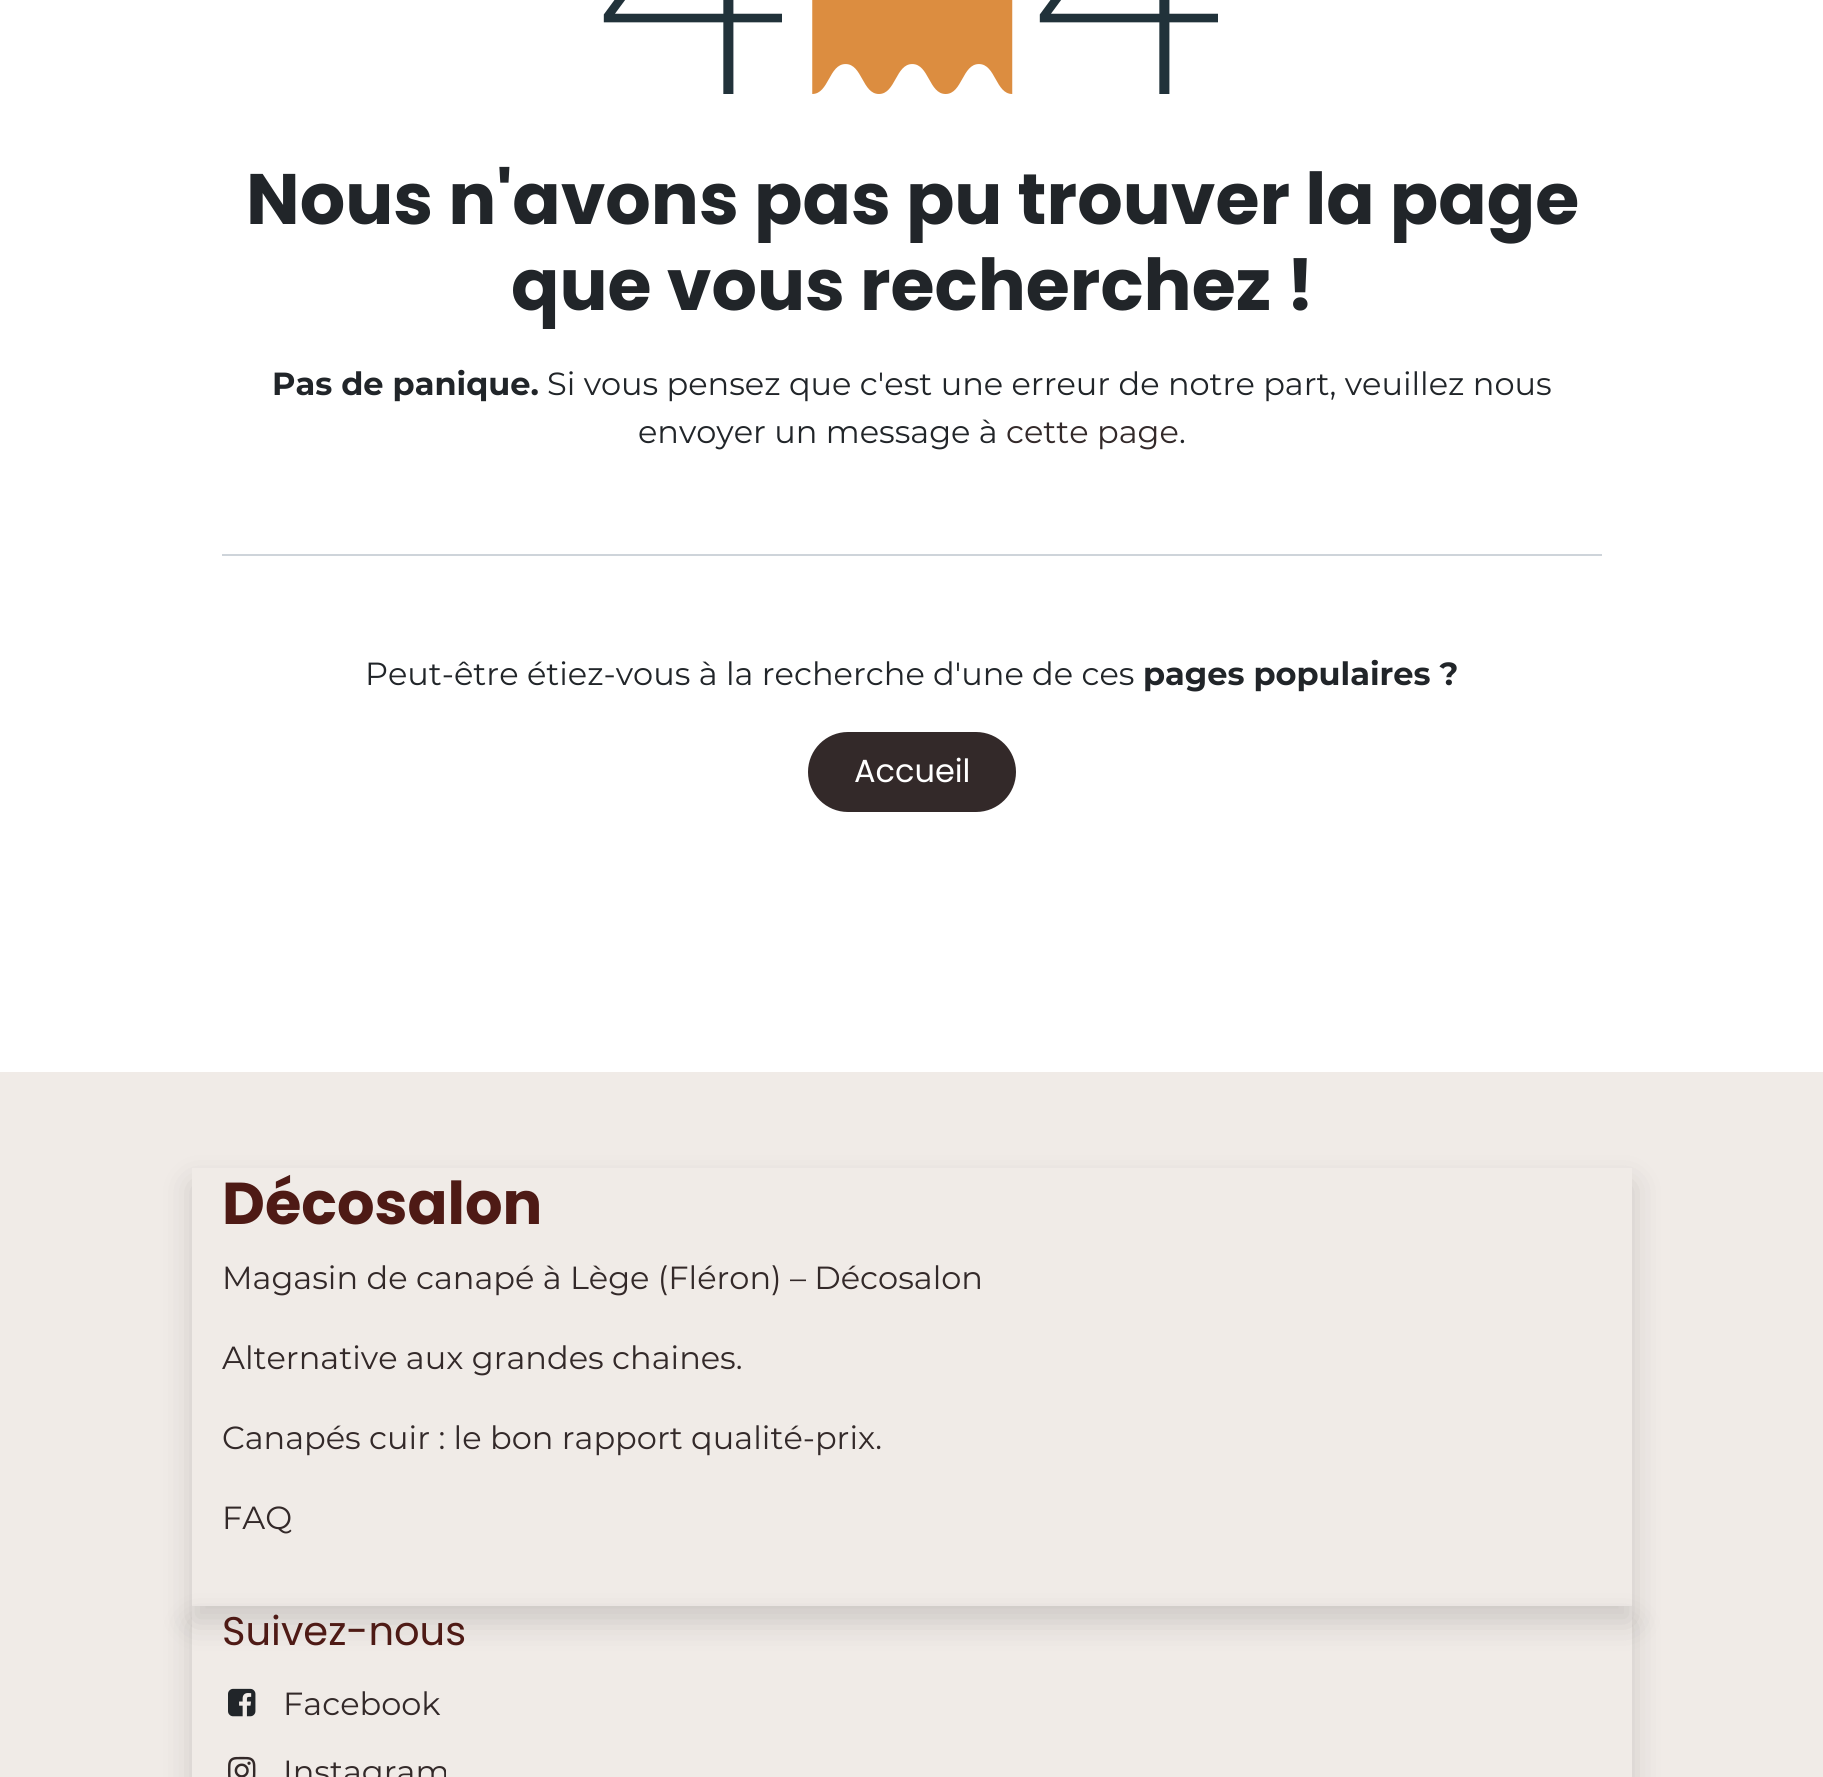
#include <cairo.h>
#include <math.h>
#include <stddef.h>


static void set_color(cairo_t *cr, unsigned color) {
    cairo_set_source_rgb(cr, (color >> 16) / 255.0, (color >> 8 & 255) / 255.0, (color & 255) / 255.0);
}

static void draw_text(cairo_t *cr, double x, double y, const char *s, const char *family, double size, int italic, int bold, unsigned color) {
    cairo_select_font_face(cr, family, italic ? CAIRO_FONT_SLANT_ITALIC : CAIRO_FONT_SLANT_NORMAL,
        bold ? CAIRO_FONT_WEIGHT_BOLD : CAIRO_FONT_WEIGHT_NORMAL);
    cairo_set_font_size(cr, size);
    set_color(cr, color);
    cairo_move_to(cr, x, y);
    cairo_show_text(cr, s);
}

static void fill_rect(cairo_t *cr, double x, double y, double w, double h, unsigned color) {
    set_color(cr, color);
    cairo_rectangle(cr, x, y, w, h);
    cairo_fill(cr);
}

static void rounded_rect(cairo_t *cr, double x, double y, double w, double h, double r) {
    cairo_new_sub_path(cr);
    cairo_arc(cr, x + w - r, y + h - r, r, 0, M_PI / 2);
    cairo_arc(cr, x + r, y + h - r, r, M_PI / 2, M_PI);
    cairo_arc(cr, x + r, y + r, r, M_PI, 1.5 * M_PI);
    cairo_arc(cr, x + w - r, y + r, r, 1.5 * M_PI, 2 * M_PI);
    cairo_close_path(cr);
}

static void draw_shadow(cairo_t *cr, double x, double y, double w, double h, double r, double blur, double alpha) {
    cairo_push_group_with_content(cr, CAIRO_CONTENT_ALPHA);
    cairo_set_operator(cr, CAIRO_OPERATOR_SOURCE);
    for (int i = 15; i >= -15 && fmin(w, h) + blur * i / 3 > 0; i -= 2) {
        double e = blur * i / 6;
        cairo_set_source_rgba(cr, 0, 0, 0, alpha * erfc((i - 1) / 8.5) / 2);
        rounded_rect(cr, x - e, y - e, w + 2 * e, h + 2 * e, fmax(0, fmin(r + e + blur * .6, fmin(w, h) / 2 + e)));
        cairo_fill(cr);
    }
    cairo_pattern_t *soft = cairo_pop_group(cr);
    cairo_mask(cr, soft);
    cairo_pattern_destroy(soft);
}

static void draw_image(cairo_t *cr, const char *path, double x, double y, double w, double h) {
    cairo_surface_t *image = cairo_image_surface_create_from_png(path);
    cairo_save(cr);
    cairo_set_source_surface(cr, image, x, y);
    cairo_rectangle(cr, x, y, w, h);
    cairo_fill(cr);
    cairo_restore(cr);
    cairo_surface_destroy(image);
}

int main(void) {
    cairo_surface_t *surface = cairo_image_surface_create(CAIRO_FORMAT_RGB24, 1823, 1777);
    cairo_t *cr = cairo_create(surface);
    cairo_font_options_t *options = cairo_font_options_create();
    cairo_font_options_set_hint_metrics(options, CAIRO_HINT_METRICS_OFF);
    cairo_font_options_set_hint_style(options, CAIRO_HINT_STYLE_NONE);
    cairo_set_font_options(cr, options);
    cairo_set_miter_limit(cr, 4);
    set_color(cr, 0xFFFFFF);
    cairo_paint(cr);
    draw_image(cr, "assets/img1.png", 603, 0, 615, 94);
    draw_text(cr, 246, 224, "Nous n'avons pas pu trouver la page", "Poppins", 71.4, 0, 1, 0x212529);
    draw_text(cr, 511, 310, "que vous recherchez !", "Poppins", 71.4, 0, 1, 0x212529);
    draw_text(cr, 272, 395, "Pas de panique.", "Montserrat", 32, 0, 1, 0x212529);
    draw_text(cr, 547, 395, "Si vous pensez que c'est une erreur de notre part, veuillez nous", "Montserrat Thin", 32, 0, 0, 0x212529);
    draw_text(cr, 638, 443, "envoyer un message à", "Montserrat Thin", 32, 0, 0, 0x212529);
    draw_text(cr, 1006, 443, "cette page", "Montserrat Thin", 32, 0, 0, 0x332929);
    draw_text(cr, 1179, 443, ".", "Montserrat Thin", 32, 0, 0, 0x212529);
    fill_rect(cr, 222, 554, 1380, 2, 0xCED4DA);
    draw_text(cr, 365, 685, "Peut-être étiez-vous à la recherche d'une de ces", "Montserrat Thin", 32, 0, 0, 0x212529);
    draw_text(cr, 1143, 685, "pages populaires ?", "Montserrat", 32, 0, 1, 0x212529);
    set_color(cr, 0x332929);
    rounded_rect(cr, 809, 733, 206, 78, 39);
    cairo_fill_preserve(cr);
    cairo_stroke(cr);
    draw_text(cr, 854, 782, "Accueil", "Poppins", 32, 0, 0, 0xFFFFFF);
    fill_rect(cr, 0, 1072, 1823, 705, 0xF0EBE7);
    cairo_save(cr);
    cairo_set_fill_rule(cr, CAIRO_FILL_RULE_EVEN_ODD);
    cairo_new_path(cr);
    cairo_move_to(cr, 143, 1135);
    cairo_line_to(cr, 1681, 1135);
    cairo_line_to(cr, 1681, 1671);
    cairo_line_to(cr, 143, 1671);
    cairo_close_path(cr);
    cairo_move_to(cr, 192, 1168);
    cairo_line_to(cr, 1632, 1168);
    cairo_line_to(cr, 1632, 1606);
    cairo_line_to(cr, 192, 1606);
    cairo_close_path(cr);
    cairo_clip(cr);
    set_color(cr, 0x000000);
    draw_shadow(cr, 192, 1184, 1440, 438, 0, 16, 0.15);
    cairo_restore(cr);
    draw_text(cr, 222, 1224, "Décosalon", "Poppins", 59, 0, 1, 0x4E1A15);
    draw_text(cr, 222, 1289, "Magasin de canapé à Lège (Fléron) – Décosalon", "Montserrat Thin", 32, 0, 0, 0x332929);
    draw_text(cr, 222, 1369, "Alternative aux grandes chaines.", "Montserrat Thin", 32, 0, 0, 0x332929);
    draw_text(cr, 222, 1449, "Canapés cuir : le bon rapport qualité-prix.", "Montserrat Thin", 32, 0, 0, 0x332929);
    draw_text(cr, 222, 1529, "FAQ", "Montserrat Thin", 32, 0, 0, 0x332929);
    cairo_save(cr);
    cairo_set_fill_rule(cr, CAIRO_FILL_RULE_EVEN_ODD);
    cairo_new_path(cr);
    cairo_move_to(cr, 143, 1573);
    cairo_line_to(cr, 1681, 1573);
    cairo_line_to(cr, 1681, 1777);
    cairo_line_to(cr, 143, 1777);
    cairo_close_path(cr);
    cairo_move_to(cr, 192, 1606);
    cairo_line_to(cr, 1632, 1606);
    cairo_line_to(cr, 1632, 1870);
    cairo_line_to(cr, 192, 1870);
    cairo_close_path(cr);
    cairo_clip(cr);
    set_color(cr, 0x000000);
    draw_shadow(cr, 192, 1622, 1440, 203, 0, 16, 0.15);
    cairo_restore(cr);
    draw_text(cr, 222, 1645, "Suivez-nous", "Poppins", 40, 0, 0, 0x4E1A15);
    draw_image(cr, "assets/img2.png", 228, 1688, 28, 29);
    draw_text(cr, 283, 1715, "Facebook", "Montserrat Thin", 32, 0, 0, 0x332929);
    draw_image(cr, "assets/img3.png", 228, 1756, 28, 21);
    draw_text(cr, 283, 1783, "Instagram", "Montserrat Thin", 32, 0, 0, 0x332929);
    cairo_surface_write_to_png(surface, "output.png");
    cairo_font_options_destroy(options);
    cairo_destroy(cr);
    cairo_surface_destroy(surface);
    return 0;
}
